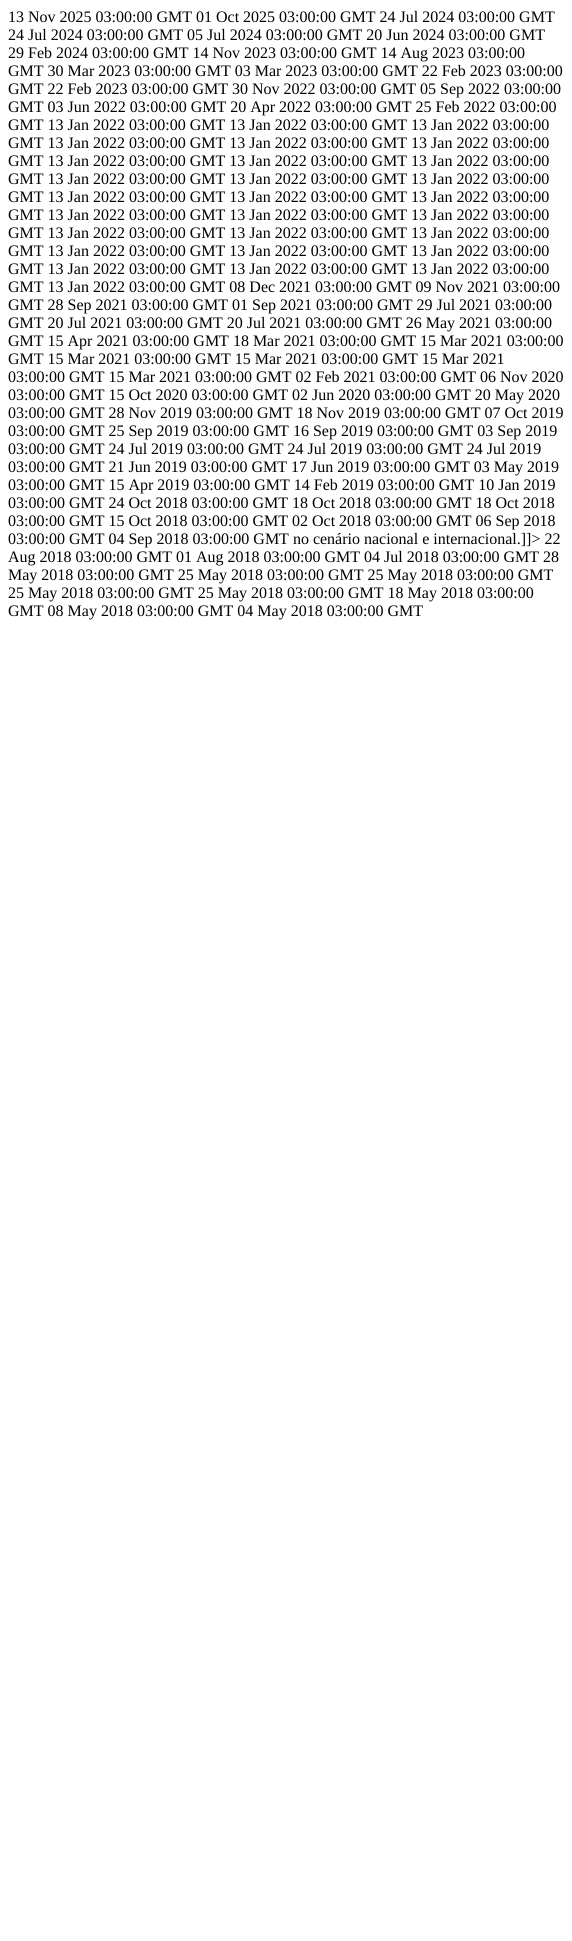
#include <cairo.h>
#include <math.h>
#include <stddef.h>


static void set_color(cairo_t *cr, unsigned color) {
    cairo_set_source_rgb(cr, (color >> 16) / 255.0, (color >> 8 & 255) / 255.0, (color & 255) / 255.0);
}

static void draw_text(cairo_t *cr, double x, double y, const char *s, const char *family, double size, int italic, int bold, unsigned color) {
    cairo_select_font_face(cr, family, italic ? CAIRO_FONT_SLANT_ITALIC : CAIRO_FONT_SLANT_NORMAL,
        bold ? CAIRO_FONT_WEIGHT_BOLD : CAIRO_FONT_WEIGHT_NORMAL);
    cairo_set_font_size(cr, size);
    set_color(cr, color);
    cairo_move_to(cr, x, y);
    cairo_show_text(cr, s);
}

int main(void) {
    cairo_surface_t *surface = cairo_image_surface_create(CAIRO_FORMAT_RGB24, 572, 1941);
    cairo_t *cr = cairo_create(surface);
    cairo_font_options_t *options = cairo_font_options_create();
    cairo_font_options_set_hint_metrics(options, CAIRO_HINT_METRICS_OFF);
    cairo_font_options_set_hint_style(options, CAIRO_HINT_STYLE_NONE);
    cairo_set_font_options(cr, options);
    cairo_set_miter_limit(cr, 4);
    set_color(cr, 0xFFFFFF);
    cairo_paint(cr);
    draw_text(cr, 8, 22, "13 Nov 2025 03:00:00 GMT 01 Oct 2025 03:00:00 GMT 24 Jul 2024 03:00:00 GMT", "Liberation Serif", 16, 0, 0, 0x000000);
    draw_text(cr, 8, 40, "24 Jul 2024 03:00:00 GMT 05 Jul 2024 03:00:00 GMT 20 Jun 2024 03:00:00 GMT", "Liberation Serif", 16, 0, 0, 0x000000);
    draw_text(cr, 8, 58, "29 Feb 2024 03:00:00 GMT 14 Nov 2023 03:00:00 GMT 14 Aug 2023 03:00:00", "Liberation Serif", 16, 0, 0, 0x000000);
    draw_text(cr, 8, 76, "GMT 30 Mar 2023 03:00:00 GMT 03 Mar 2023 03:00:00 GMT 22 Feb 2023 03:00:00", "Liberation Serif", 16, 0, 0, 0x000000);
    draw_text(cr, 8, 94, "GMT 22 Feb 2023 03:00:00 GMT 30 Nov 2022 03:00:00 GMT 05 Sep 2022 03:00:00", "Liberation Serif", 16, 0, 0, 0x000000);
    draw_text(cr, 8, 112, "GMT 03 Jun 2022 03:00:00 GMT 20 Apr 2022 03:00:00 GMT 25 Feb 2022 03:00:00", "Liberation Serif", 16, 0, 0, 0x000000);
    draw_text(cr, 8, 130, "GMT 13 Jan 2022 03:00:00 GMT 13 Jan 2022 03:00:00 GMT 13 Jan 2022 03:00:00", "Liberation Serif", 16, 0, 0, 0x000000);
    draw_text(cr, 8, 148, "GMT 13 Jan 2022 03:00:00 GMT 13 Jan 2022 03:00:00 GMT 13 Jan 2022 03:00:00", "Liberation Serif", 16, 0, 0, 0x000000);
    draw_text(cr, 8, 166, "GMT 13 Jan 2022 03:00:00 GMT 13 Jan 2022 03:00:00 GMT 13 Jan 2022 03:00:00", "Liberation Serif", 16, 0, 0, 0x000000);
    draw_text(cr, 8, 184, "GMT 13 Jan 2022 03:00:00 GMT 13 Jan 2022 03:00:00 GMT 13 Jan 2022 03:00:00", "Liberation Serif", 16, 0, 0, 0x000000);
    draw_text(cr, 8, 202, "GMT 13 Jan 2022 03:00:00 GMT 13 Jan 2022 03:00:00 GMT 13 Jan 2022 03:00:00", "Liberation Serif", 16, 0, 0, 0x000000);
    draw_text(cr, 8, 220, "GMT 13 Jan 2022 03:00:00 GMT 13 Jan 2022 03:00:00 GMT 13 Jan 2022 03:00:00", "Liberation Serif", 16, 0, 0, 0x000000);
    draw_text(cr, 8, 238, "GMT 13 Jan 2022 03:00:00 GMT 13 Jan 2022 03:00:00 GMT 13 Jan 2022 03:00:00", "Liberation Serif", 16, 0, 0, 0x000000);
    draw_text(cr, 8, 256, "GMT 13 Jan 2022 03:00:00 GMT 13 Jan 2022 03:00:00 GMT 13 Jan 2022 03:00:00", "Liberation Serif", 16, 0, 0, 0x000000);
    draw_text(cr, 8, 274, "GMT 13 Jan 2022 03:00:00 GMT 13 Jan 2022 03:00:00 GMT 13 Jan 2022 03:00:00", "Liberation Serif", 16, 0, 0, 0x000000);
    draw_text(cr, 8, 292, "GMT 13 Jan 2022 03:00:00 GMT 08 Dec 2021 03:00:00 GMT 09 Nov 2021 03:00:00", "Liberation Serif", 16, 0, 0, 0x000000);
    draw_text(cr, 8, 310, "GMT 28 Sep 2021 03:00:00 GMT 01 Sep 2021 03:00:00 GMT 29 Jul 2021 03:00:00", "Liberation Serif", 16, 0, 0, 0x000000);
    draw_text(cr, 8, 328, "GMT 20 Jul 2021 03:00:00 GMT 20 Jul 2021 03:00:00 GMT 26 May 2021 03:00:00", "Liberation Serif", 16, 0, 0, 0x000000);
    draw_text(cr, 8, 346, "GMT 15 Apr 2021 03:00:00 GMT 18 Mar 2021 03:00:00 GMT 15 Mar 2021 03:00:00", "Liberation Serif", 16, 0, 0, 0x000000);
    draw_text(cr, 8, 364, "GMT 15 Mar 2021 03:00:00 GMT 15 Mar 2021 03:00:00 GMT 15 Mar 2021", "Liberation Serif", 16, 0, 0, 0x000000);
    draw_text(cr, 8, 382, "03:00:00 GMT 15 Mar 2021 03:00:00 GMT 02 Feb 2021 03:00:00 GMT 06 Nov 2020", "Liberation Serif", 16, 0, 0, 0x000000);
    draw_text(cr, 8, 400, "03:00:00 GMT 15 Oct 2020 03:00:00 GMT 02 Jun 2020 03:00:00 GMT 20 May 2020", "Liberation Serif", 16, 0, 0, 0x000000);
    draw_text(cr, 8, 418, "03:00:00 GMT 28 Nov 2019 03:00:00 GMT 18 Nov 2019 03:00:00 GMT 07 Oct 2019", "Liberation Serif", 16, 0, 0, 0x000000);
    draw_text(cr, 8, 436, "03:00:00 GMT 25 Sep 2019 03:00:00 GMT 16 Sep 2019 03:00:00 GMT 03 Sep 2019", "Liberation Serif", 16, 0, 0, 0x000000);
    draw_text(cr, 8, 454, "03:00:00 GMT 24 Jul 2019 03:00:00 GMT 24 Jul 2019 03:00:00 GMT 24 Jul 2019", "Liberation Serif", 16, 0, 0, 0x000000);
    draw_text(cr, 8, 472, "03:00:00 GMT 21 Jun 2019 03:00:00 GMT 17 Jun 2019 03:00:00 GMT 03 May 2019", "Liberation Serif", 16, 0, 0, 0x000000);
    draw_text(cr, 8, 490, "03:00:00 GMT 15 Apr 2019 03:00:00 GMT 14 Feb 2019 03:00:00 GMT 10 Jan 2019", "Liberation Serif", 16, 0, 0, 0x000000);
    draw_text(cr, 8, 508, "03:00:00 GMT 24 Oct 2018 03:00:00 GMT 18 Oct 2018 03:00:00 GMT 18 Oct 2018", "Liberation Serif", 16, 0, 0, 0x000000);
    draw_text(cr, 8, 526, "03:00:00 GMT 15 Oct 2018 03:00:00 GMT 02 Oct 2018 03:00:00 GMT 06 Sep 2018", "Liberation Serif", 16, 0, 0, 0x000000);
    draw_text(cr, 8, 544, "03:00:00 GMT 04 Sep 2018 03:00:00 GMT no cenário nacional e internacional.]]> 22", "Liberation Serif", 16, 0, 0, 0x000000);
    draw_text(cr, 8, 562, "Aug 2018 03:00:00 GMT 01 Aug 2018 03:00:00 GMT 04 Jul 2018 03:00:00 GMT 28", "Liberation Serif", 16, 0, 0, 0x000000);
    draw_text(cr, 8, 580, "May 2018 03:00:00 GMT 25 May 2018 03:00:00 GMT 25 May 2018 03:00:00 GMT", "Liberation Serif", 16, 0, 0, 0x000000);
    draw_text(cr, 8, 598, "25 May 2018 03:00:00 GMT 25 May 2018 03:00:00 GMT 18 May 2018 03:00:00", "Liberation Serif", 16, 0, 0, 0x000000);
    draw_text(cr, 8, 616, "GMT 08 May 2018 03:00:00 GMT 04 May 2018 03:00:00 GMT", "Liberation Serif", 16, 0, 0, 0x000000);
    cairo_surface_write_to_png(surface, "output.png");
    cairo_font_options_destroy(options);
    cairo_destroy(cr);
    cairo_surface_destroy(surface);
    return 0;
}
